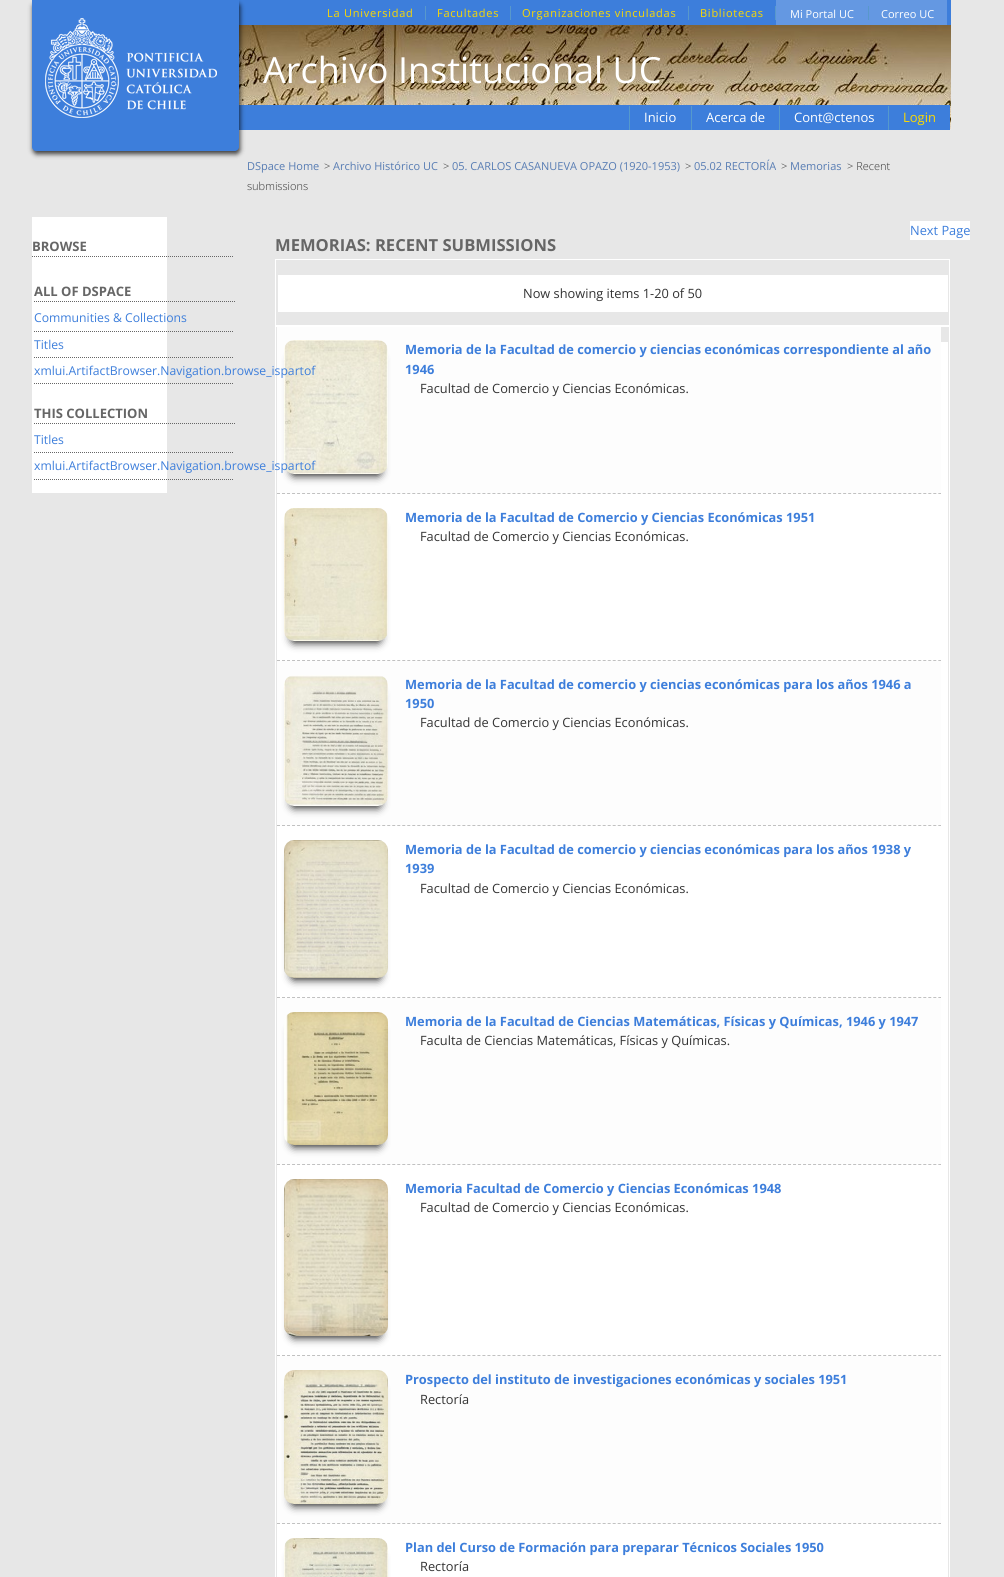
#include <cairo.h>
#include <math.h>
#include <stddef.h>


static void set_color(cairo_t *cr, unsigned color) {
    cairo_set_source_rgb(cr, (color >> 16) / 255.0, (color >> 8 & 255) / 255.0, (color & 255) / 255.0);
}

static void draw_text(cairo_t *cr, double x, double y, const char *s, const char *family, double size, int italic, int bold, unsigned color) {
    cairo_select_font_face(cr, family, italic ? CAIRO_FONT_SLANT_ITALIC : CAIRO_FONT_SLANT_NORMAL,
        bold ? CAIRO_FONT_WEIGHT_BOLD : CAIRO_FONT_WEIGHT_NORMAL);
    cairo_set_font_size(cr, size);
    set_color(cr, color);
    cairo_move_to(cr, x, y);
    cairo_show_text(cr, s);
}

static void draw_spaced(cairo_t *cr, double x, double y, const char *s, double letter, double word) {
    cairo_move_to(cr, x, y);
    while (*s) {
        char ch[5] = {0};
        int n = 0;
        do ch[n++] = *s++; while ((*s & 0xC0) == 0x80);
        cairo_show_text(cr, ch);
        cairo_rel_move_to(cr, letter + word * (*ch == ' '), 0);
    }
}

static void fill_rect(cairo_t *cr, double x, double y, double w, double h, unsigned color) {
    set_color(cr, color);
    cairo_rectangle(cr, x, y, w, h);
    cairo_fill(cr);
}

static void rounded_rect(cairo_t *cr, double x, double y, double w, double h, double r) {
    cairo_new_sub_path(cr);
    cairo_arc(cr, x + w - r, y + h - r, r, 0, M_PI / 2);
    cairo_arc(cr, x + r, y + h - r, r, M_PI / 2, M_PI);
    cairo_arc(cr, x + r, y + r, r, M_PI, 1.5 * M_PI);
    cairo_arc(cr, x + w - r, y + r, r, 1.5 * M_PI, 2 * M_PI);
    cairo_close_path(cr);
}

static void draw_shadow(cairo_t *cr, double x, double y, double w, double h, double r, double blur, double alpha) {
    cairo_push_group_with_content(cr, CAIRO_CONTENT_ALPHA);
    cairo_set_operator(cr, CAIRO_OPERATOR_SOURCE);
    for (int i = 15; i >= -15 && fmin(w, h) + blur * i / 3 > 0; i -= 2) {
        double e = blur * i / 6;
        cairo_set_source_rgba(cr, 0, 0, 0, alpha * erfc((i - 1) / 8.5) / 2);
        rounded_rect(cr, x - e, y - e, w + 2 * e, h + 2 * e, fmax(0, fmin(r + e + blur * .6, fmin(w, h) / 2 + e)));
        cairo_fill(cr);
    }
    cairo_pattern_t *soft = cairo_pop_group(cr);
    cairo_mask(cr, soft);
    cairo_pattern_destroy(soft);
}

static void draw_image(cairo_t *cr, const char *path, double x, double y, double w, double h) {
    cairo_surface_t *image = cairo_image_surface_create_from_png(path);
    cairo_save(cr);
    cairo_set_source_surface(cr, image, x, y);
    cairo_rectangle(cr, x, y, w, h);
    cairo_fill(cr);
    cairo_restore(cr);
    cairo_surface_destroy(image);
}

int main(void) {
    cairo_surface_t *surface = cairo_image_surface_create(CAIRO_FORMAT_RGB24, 1004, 1577);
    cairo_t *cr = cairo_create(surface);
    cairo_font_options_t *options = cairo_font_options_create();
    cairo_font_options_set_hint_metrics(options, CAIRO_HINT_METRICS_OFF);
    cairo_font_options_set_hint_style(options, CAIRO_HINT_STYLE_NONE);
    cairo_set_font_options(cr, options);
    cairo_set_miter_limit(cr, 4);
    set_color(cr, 0xE7E7E7);
    cairo_paint(cr);
    fill_rect(cr, 239, 0, 712, 25, 0x3D7EDB);
    draw_image(cr, "assets/img10.png", 239, 25, 712, 104);
    fill_rect(cr, 239, 105, 711, 25, 0x3D7EDB);
    set_color(cr, 0x000000);
    draw_shadow(cr, 33, 3, 207, 151, 4, 2.5, 0.75);
    set_color(cr, 0x3D7EDB);
    cairo_new_path(cr);
    cairo_move_to(cr, 32, 0);
    cairo_line_to(cr, 239, 0);
    cairo_line_to(cr, 239, 147);
    cairo_curve_to(cr, 239, 149, 237, 151, 235, 151);
    cairo_line_to(cr, 36, 151);
    cairo_curve_to(cr, 34, 151, 32, 149, 32, 147);
    cairo_close_path(cr);
    cairo_fill(cr);
    draw_image(cr, "assets/img1.png", 45, 18, 172, 100);
    cairo_select_font_face(cr, "Open Sans", CAIRO_FONT_SLANT_NORMAL, CAIRO_FONT_WEIGHT_NORMAL);
    cairo_set_font_size(cr, 11);
    set_color(cr, 0xFCD900);
    draw_spaced(cr, 327, 17, "La Universidad", 0.75, 0);
    fill_rect(cr, 425, 6, 1, 14, 0x5898CB);
    set_color(cr, 0xFCD900);
    draw_spaced(cr, 437, 17, "Facultades", 0.75, 0);
    fill_rect(cr, 510, 6, 1, 14, 0x5898CB);
    set_color(cr, 0xFCD900);
    draw_spaced(cr, 522, 17, "Organizaciones vinculadas", 0.75, 0);
    fill_rect(cr, 688, 6, 1, 14, 0x5898CB);
    set_color(cr, 0xFCD900);
    draw_spaced(cr, 700, 17, "Bibliotecas", 0.75, 0);
    fill_rect(cr, 775, 6, 1, 14, 0x5898CB);
    fill_rect(cr, 776, 0, 171, 25, 0x6498E2);
    draw_text(cr, 790, 18, "Mi Portal UC", "Open Sans", 11, 0, 0, 0xFFFFFF);
    fill_rect(cr, 868, 6, 1, 14, 0x5898CB);
    draw_text(cr, 881, 18, "Correo UC", "Open Sans", 11, 0, 0, 0xFFFFFF);
    draw_text(cr, 263, 83, "Archivo Institucional UC", "Open Sans", 36, 0, 0, 0xFFFFFF);
    fill_rect(cr, 629, 106, 1, 24, 0x5599CC);
    draw_text(cr, 644, 122, "Inicio", "Open Sans", 13, 0, 0, 0xFFFFFF);
    fill_rect(cr, 691, 106, 1, 24, 0x5599CC);
    draw_text(cr, 706, 122, "Acerca de", "Open Sans", 13, 0, 0, 0xFFFFFF);
    fill_rect(cr, 779, 106, 1, 24, 0x5599CC);
    draw_text(cr, 794, 122, "Cont@ctenos", "Open Sans", 13, 0, 0, 0xFFFFFF);
    fill_rect(cr, 888, 106, 1, 24, 0x5599CC);
    draw_text(cr, 903, 122, "Login", "Open Sans", 13, 0, 0, 0xFCD900);
    draw_text(cr, 247, 170, "DSpace Home", "Open Sans", 11, 0, 0, 0x577CB3);
    draw_text(cr, 324, 170, ">", "Open Sans Light", 11, 0, 0, 0x333333);
    draw_text(cr, 333, 170, "Archivo Histórico UC", "Open Sans", 11, 0, 0, 0x577CB3);
    draw_text(cr, 443, 170, ">", "Open Sans Light", 11, 0, 0, 0x333333);
    draw_text(cr, 452, 170, "05. CARLOS CASANUEVA OPAZO (1920-1953)", "Open Sans", 11, 0, 0, 0x577CB3);
    draw_text(cr, 685, 170, ">", "Open Sans Light", 11, 0, 0, 0x333333);
    draw_text(cr, 694, 170, "05.02 RECTORÍA", "Open Sans", 11, 0, 0, 0x577CB3);
    draw_text(cr, 781, 170, ">", "Open Sans Light", 11, 0, 0, 0x333333);
    draw_text(cr, 790, 170, "Memorias", "Open Sans", 11, 0, 0, 0x577CB3);
    draw_text(cr, 847, 170, "> Recent", "Open Sans Light", 11, 0, 0, 0x333333);
    draw_text(cr, 247, 190, "submissions", "Open Sans Light", 11, 0, 0, 0x333333);
    fill_rect(cr, 32, 217, 135, 276, 0xFFFFFF);
    cairo_new_path(cr);
    cairo_move_to(cr, 32, 256.5);
    cairo_line_to(cr, 234, 256.5);
    set_color(cr, 0x666666);
    cairo_set_line_width(cr, 1);
    cairo_set_dash(cr, (double[]){1, 1}, 2, 0);
    cairo_stroke(cr);
    draw_text(cr, 32, 251, "BROWSE", "Open Sans", 13, 0, 1, 0x666666);
    cairo_new_path(cr);
    cairo_move_to(cr, 34, 301.5);
    cairo_line_to(cr, 236, 301.5);
    cairo_stroke(cr);
    draw_text(cr, 34, 296, "ALL OF DSPACE", "Open Sans", 13, 0, 1, 0x666666);
    cairo_new_path(cr);
    cairo_move_to(cr, 34, 331.5);
    cairo_line_to(cr, 234, 331.5);
    cairo_stroke(cr);
    draw_text(cr, 34, 322, "Communities & Collections", "Open Sans", 12.2, 0, 0, 0x3D7EDB);
    cairo_new_path(cr);
    cairo_move_to(cr, 34, 357.5);
    cairo_line_to(cr, 234, 357.5);
    set_color(cr, 0x666666);
    cairo_stroke(cr);
    draw_text(cr, 34, 349, "Titles", "Open Sans", 12.2, 0, 0, 0x3D7EDB);
    cairo_new_path(cr);
    cairo_move_to(cr, 34, 383.5);
    cairo_line_to(cr, 234, 383.5);
    set_color(cr, 0x666666);
    cairo_stroke(cr);
    cairo_rectangle(cr, 275.5, 259.5, 674, 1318);
    set_color(cr, 0xFFFFFF);
    cairo_set_dash(cr, NULL, 0, 0);
    cairo_stroke(cr);
    fill_rect(cr, 277, 327, 664, 167, 0xFDFDFD);
    set_color(cr, 0x000000);
    draw_shadow(cr, 292, 357, 88, 118, 2, 4.5, 1);
    draw_image(cr, "assets/img2.png", 284, 340, 104, 134);
    draw_text(cr, 34, 375, "xmlui.ArtifactBrowser.Navigation.browse_ispartof", "Open Sans", 12.2, 0, 0, 0x3D7EDB);
    cairo_new_path(cr);
    cairo_move_to(cr, 34, 423.5);
    cairo_line_to(cr, 236, 423.5);
    set_color(cr, 0x666666);
    cairo_set_dash(cr, (double[]){1, 1}, 2, 0);
    cairo_stroke(cr);
    draw_text(cr, 34, 418, "THIS COLLECTION", "Open Sans", 13, 0, 1, 0x666666);
    cairo_new_path(cr);
    cairo_move_to(cr, 34, 452.5);
    cairo_line_to(cr, 234, 452.5);
    cairo_stroke(cr);
    draw_text(cr, 34, 444, "Titles", "Open Sans", 12.2, 0, 0, 0x3D7EDB);
    cairo_new_path(cr);
    cairo_move_to(cr, 34, 479.5);
    cairo_line_to(cr, 234, 479.5);
    set_color(cr, 0x666666);
    cairo_stroke(cr);
    draw_text(cr, 34, 470, "xmlui.ArtifactBrowser.Navigation.browse_ispartof", "Open Sans", 12.2, 0, 0, 0x3D7EDB);
    fill_rect(cr, 941, 342, 7, 1235, 0xFFFFFF);
    fill_rect(cr, 910, 221, 60, 19, 0xFFFFFF);
    draw_text(cr, 910, 235, "Next Page", "Open Sans", 12.8, 0, 0, 0x3D7EDB);
    fill_rect(cr, 278, 275, 670, 37, 0xFFFFFF);
    draw_text(cr, 523, 298, "Now showing items 1-20 of 50", "Open Sans", 12.8, 0, 0, 0x333333);
    fill_rect(cr, 276, 325, 673, 2, 0xFFFFFF);
    cairo_new_path(cr);
    cairo_move_to(cr, 277, 493.5);
    cairo_line_to(cr, 941, 493.5);
    set_color(cr, 0xC1C1C1);
    cairo_set_dash(cr, (double[]){3, 2.01}, 2, 0);
    cairo_stroke(cr);
    draw_text(cr, 405, 354, "Memoria de la Facultad de comercio y ciencias económicas correspondiente al año", "Open Sans", 12.8, 0, 1, 0x3D7EDB);
    draw_text(cr, 405, 374, "1946", "Open Sans", 12.8, 0, 1, 0x3D7EDB);
    draw_text(cr, 420, 393, "Facultad de Comercio y Ciencias Económicas.", "Open Sans", 12.8, 0, 0, 0x333333);
    fill_rect(cr, 277, 494, 664, 167, 0xFFFFFF);
    cairo_new_path(cr);
    cairo_move_to(cr, 277, 660.5);
    cairo_line_to(cr, 941, 660.5);
    set_color(cr, 0xC1C1C1);
    cairo_stroke(cr);
    set_color(cr, 0x000000);
    draw_shadow(cr, 292, 525, 88, 117, 2, 4.5, 1);
    draw_image(cr, "assets/img3.png", 284, 508, 104, 133);
    draw_text(cr, 405, 522, "Memoria de la Facultad de Comercio y Ciencias Económicas 1951", "Open Sans", 12.8, 0, 1, 0x3D7EDB);
    draw_text(cr, 420, 541, "Facultad de Comercio y Ciencias Económicas.", "Open Sans", 12.8, 0, 0, 0x333333);
    fill_rect(cr, 277, 661, 664, 165, 0xFDFDFD);
    cairo_new_path(cr);
    cairo_move_to(cr, 277, 825.5);
    cairo_line_to(cr, 941, 825.5);
    set_color(cr, 0xC1C1C1);
    cairo_stroke(cr);
    set_color(cr, 0x000000);
    draw_shadow(cr, 292, 692, 88, 115, 2, 4.5, 1);
    draw_image(cr, "assets/img4.png", 284, 675, 104, 131);
    draw_text(cr, 405, 689, "Memoria de la Facultad de comercio y ciencias económicas para los años 1946 a", "Open Sans", 12.8, 0, 1, 0x3D7EDB);
    draw_text(cr, 405, 708, "1950", "Open Sans", 12.8, 0, 1, 0x3D7EDB);
    draw_text(cr, 420, 727, "Facultad de Comercio y Ciencias Económicas.", "Open Sans", 12.8, 0, 0, 0x333333);
    fill_rect(cr, 277, 826, 664, 172, 0xFFFFFF);
    cairo_new_path(cr);
    cairo_move_to(cr, 277, 997.5);
    cairo_line_to(cr, 941, 997.5);
    set_color(cr, 0xC1C1C1);
    cairo_stroke(cr);
    set_color(cr, 0x000000);
    draw_shadow(cr, 292, 857, 88, 122, 2, 4.5, 1);
    draw_image(cr, "assets/img5.png", 284, 840, 104, 138);
    draw_text(cr, 405, 854, "Memoria de la Facultad de comercio y ciencias económicas para los años 1938 y", "Open Sans", 12.8, 0, 1, 0x3D7EDB);
    draw_text(cr, 405, 873, "1939", "Open Sans", 12.8, 0, 1, 0x3D7EDB);
    draw_text(cr, 420, 893, "Facultad de Comercio y Ciencias Económicas.", "Open Sans", 12.8, 0, 0, 0x333333);
    fill_rect(cr, 277, 998, 664, 167, 0xFDFDFD);
    cairo_new_path(cr);
    cairo_move_to(cr, 277, 1164.5);
    cairo_line_to(cr, 941, 1164.5);
    set_color(cr, 0xC1C1C1);
    cairo_stroke(cr);
    set_color(cr, 0x000000);
    draw_shadow(cr, 292, 1029, 88, 117, 2, 4.5, 1);
    draw_image(cr, "assets/img6.png", 284, 1012, 104, 133);
    draw_text(cr, 405, 1026, "Memoria de la Facultad de Ciencias Matemáticas, Físicas y Químicas, 1946 y 1947", "Open Sans", 12.8, 0, 1, 0x3D7EDB);
    draw_text(cr, 420, 1045, "Faculta de Ciencias Matemáticas, Físicas y Químicas.", "Open Sans", 12.8, 0, 0, 0x333333);
    fill_rect(cr, 277, 1165, 664, 191, 0xFFFFFF);
    cairo_new_path(cr);
    cairo_move_to(cr, 277, 1355.5);
    cairo_line_to(cr, 941, 1355.5);
    set_color(cr, 0xC1C1C1);
    cairo_stroke(cr);
    set_color(cr, 0x000000);
    draw_shadow(cr, 292, 1196, 88, 141, 2, 4.5, 1);
    draw_image(cr, "assets/img7.png", 284, 1179, 104, 157);
    draw_text(cr, 405, 1193, "Memoria Facultad de Comercio y Ciencias Económicas 1948", "Open Sans", 12.8, 0, 1, 0x3D7EDB);
    draw_text(cr, 420, 1212, "Facultad de Comercio y Ciencias Económicas.", "Open Sans", 12.8, 0, 0, 0x333333);
    fill_rect(cr, 277, 1356, 664, 168, 0xFDFDFD);
    cairo_new_path(cr);
    cairo_move_to(cr, 277, 1523.5);
    cairo_line_to(cr, 941, 1523.5);
    set_color(cr, 0xC1C1C1);
    cairo_stroke(cr);
    set_color(cr, 0x000000);
    draw_shadow(cr, 292, 1387, 88, 118, 2, 4.5, 1);
    draw_image(cr, "assets/img8.png", 284, 1370, 104, 134);
    draw_text(cr, 405, 1384, "Prospecto del instituto de investigaciones económicas y sociales 1951", "Open Sans", 12.8, 0, 1, 0x3D7EDB);
    draw_text(cr, 420, 1404, "Rectoría", "Open Sans", 12.8, 0, 0, 0x333333);
    fill_rect(cr, 277, 1524, 664, 53, 0xFFFFFF);
    set_color(cr, 0x000000);
    draw_shadow(cr, 292, 1555, 88, 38, 2, 4.5, 1);
    draw_image(cr, "assets/img9.png", 284, 1538, 104, 39);
    draw_text(cr, 405, 1552, "Plan del Curso de Formación para preparar Técnicos Sociales 1950", "Open Sans", 12.8, 0, 1, 0x3D7EDB);
    draw_text(cr, 420, 1571, "Rectoría", "Open Sans", 12.8, 0, 0, 0x333333);
    draw_text(cr, 275, 251, "MEMORIAS: RECENT SUBMISSIONS", "Open Sans", 16.6, 0, 1, 0x666666);
    cairo_surface_write_to_png(surface, "output.png");
    cairo_font_options_destroy(options);
    cairo_destroy(cr);
    cairo_surface_destroy(surface);
    return 0;
}
